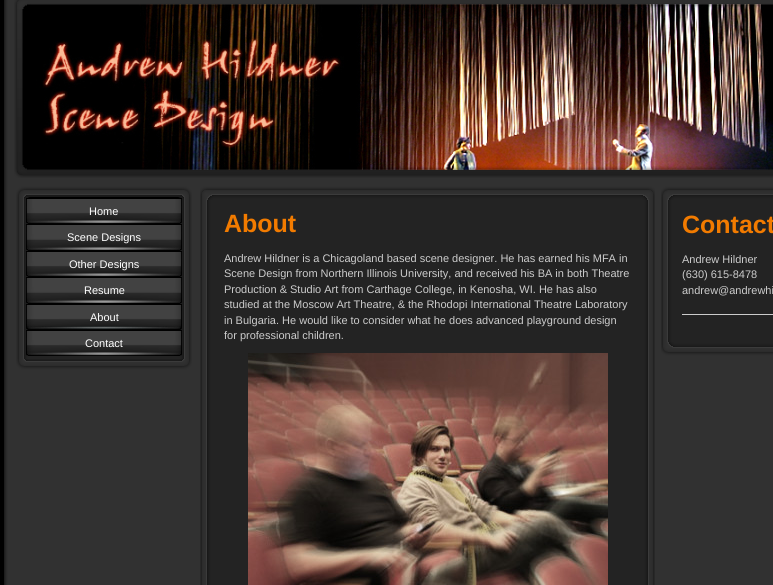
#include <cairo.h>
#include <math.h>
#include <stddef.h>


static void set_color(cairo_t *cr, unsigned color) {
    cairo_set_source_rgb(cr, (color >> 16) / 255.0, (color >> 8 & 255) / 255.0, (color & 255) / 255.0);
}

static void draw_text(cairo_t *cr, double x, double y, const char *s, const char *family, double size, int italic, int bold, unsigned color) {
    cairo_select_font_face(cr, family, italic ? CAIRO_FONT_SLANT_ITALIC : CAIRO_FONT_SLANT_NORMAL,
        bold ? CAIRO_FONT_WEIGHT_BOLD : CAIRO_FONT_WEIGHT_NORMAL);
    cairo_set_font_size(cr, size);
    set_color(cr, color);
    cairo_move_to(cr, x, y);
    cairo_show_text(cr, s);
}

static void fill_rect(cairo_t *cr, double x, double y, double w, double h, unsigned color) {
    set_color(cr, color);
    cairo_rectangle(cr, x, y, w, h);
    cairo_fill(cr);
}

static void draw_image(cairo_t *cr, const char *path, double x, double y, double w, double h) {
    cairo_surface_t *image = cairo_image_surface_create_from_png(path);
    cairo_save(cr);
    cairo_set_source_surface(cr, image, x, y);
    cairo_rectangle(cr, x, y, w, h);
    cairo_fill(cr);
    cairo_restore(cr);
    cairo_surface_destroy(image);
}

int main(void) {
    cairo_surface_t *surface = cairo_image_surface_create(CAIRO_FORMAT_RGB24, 773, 585);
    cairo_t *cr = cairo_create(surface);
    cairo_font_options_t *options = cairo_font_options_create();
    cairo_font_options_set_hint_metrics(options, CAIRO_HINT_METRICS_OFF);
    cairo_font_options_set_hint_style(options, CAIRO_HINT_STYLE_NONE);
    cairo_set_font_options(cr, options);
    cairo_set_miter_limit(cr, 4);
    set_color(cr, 0x000000);
    cairo_paint(cr);
    draw_image(cr, "assets/img1.png", 4, 0, 769, 585);
    draw_image(cr, "assets/img4.png", 22, 4, 751, 166);
    draw_image(cr, "assets/img2.png", 14, 0, 759, 11);
    draw_image(cr, "assets/img3.png", 14, 11, 9, 152);
    draw_image(cr, "assets/img5.png", 14, 163, 759, 15);
    draw_image(cr, "assets/img6.png", 16, 198, 176, 161);
    draw_image(cr, "assets/img7.png", 16, 186, 176, 12);
    draw_image(cr, "assets/img8.png", 26, 199, 156, 25);
    fill_rect(cr, 26, 198, 156, 1, 0x000000);
    draw_text(cr, 89, 215, "Home", "Liberation Sans", 11, 0, 0, 0xFFFFFF);
    draw_image(cr, "assets/img9.png", 26, 225, 156, 26);
    fill_rect(cr, 26, 224, 156, 1, 0x000000);
    draw_text(cr, 67, 241, "Scene Designs", "Liberation Sans", 11, 0, 0, 0xFFFFFF);
    draw_image(cr, "assets/img8.png", 26, 252, 156, 25);
    fill_rect(cr, 26, 251, 156, 1, 0x000000);
    draw_text(cr, 69, 268, "Other Designs", "Liberation Sans", 11, 0, 0, 0xFFFFFF);
    draw_image(cr, "assets/img9.png", 26, 278, 156, 26);
    fill_rect(cr, 26, 277, 156, 1, 0x000000);
    draw_text(cr, 84, 294, "Resume", "Liberation Sans", 11, 0, 0, 0xFFFFFF);
    fill_rect(cr, 27, 326, 154, 4, 0x42494A);
    draw_image(cr, "assets/img10.png", 26, 305, 156, 25);
    fill_rect(cr, 26, 304, 156, 1, 0x000000);
    draw_text(cr, 90, 321, "About", "Liberation Sans", 11, 0, 0, 0xFFFFFF);
    draw_image(cr, "assets/img8.png", 26, 331, 156, 25);
    fill_rect(cr, 26, 330, 156, 1, 0x000000);
    draw_text(cr, 85, 347, "Contact", "Liberation Sans", 11, 0, 0, 0xFFFFFF);
    draw_image(cr, "assets/img11.png", 16, 359, 176, 11);
    draw_image(cr, "assets/img12.png", 200, 200, 455, 385);
    draw_image(cr, "assets/img13.png", 200, 186, 455, 14);
    draw_text(cr, 224, 232, "About", "Liberation Sans", 25, 0, 1, 0xF27B00);
    draw_text(cr, 224, 262, "Andrew Hildner is a Chicagoland based scene designer. He has earned his MFA in", "Liberation Sans", 11, 0, 0, 0xCCCCCC);
    draw_text(cr, 224, 277, "Scene Design from Northern Illinois University, and received his BA in both Theatre", "Liberation Sans", 11, 0, 0, 0xCCCCCC);
    draw_text(cr, 224, 293, "Production & Studio Art from Carthage College, in Kenosha, WI. He has also", "Liberation Sans", 11, 0, 0, 0xCCCCCC);
    draw_text(cr, 224, 308, "studied at the Moscow Art Theatre, & the Rhodopi International Theatre Laboratory", "Liberation Sans", 11, 0, 0, 0xCCCCCC);
    draw_text(cr, 224, 324, "in Bulgaria. He would like to consider what he does advanced playground design", "Liberation Sans", 11, 0, 0, 0xCCCCCC);
    draw_text(cr, 224, 339, "for professional children.", "Liberation Sans", 11, 0, 0, 0xCCCCCC);
    draw_image(cr, "assets/img14.png", 248, 353, 360, 232);
    draw_image(cr, "assets/img15.png", 661, 200, 112, 142);
    draw_image(cr, "assets/img16.png", 661, 186, 112, 14);
    draw_text(cr, 682, 233, "Contact", "Liberation Sans", 25, 0, 1, 0xF27B00);
    draw_text(cr, 682, 263, "Andrew Hildner", "Liberation Sans", 11, 0, 0, 0xCCCCCC);
    draw_text(cr, 682, 278, "(630) 615-8478", "Liberation Sans", 11, 0, 0, 0xCCCCCC);
    draw_text(cr, 682, 294, "andrew@andrewhi", "Liberation Sans", 11, 0, 0, 0xCCCCCC);
    fill_rect(cr, 682, 314, 91, 1, 0xCCCCCC);
    draw_image(cr, "assets/img17.png", 661, 342, 112, 14);
    cairo_surface_write_to_png(surface, "output.png");
    cairo_font_options_destroy(options);
    cairo_destroy(cr);
    cairo_surface_destroy(surface);
    return 0;
}
